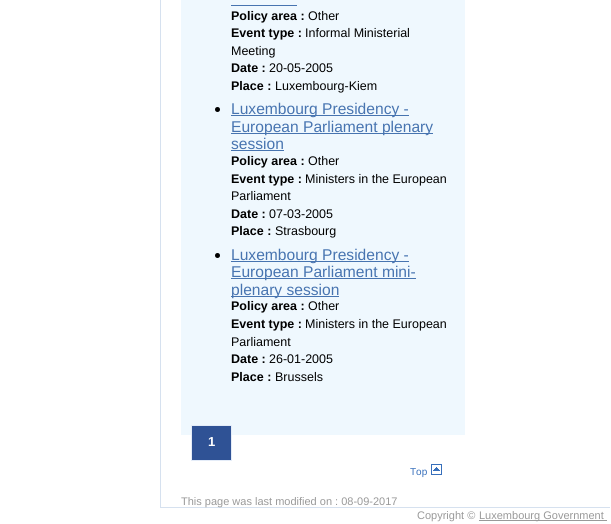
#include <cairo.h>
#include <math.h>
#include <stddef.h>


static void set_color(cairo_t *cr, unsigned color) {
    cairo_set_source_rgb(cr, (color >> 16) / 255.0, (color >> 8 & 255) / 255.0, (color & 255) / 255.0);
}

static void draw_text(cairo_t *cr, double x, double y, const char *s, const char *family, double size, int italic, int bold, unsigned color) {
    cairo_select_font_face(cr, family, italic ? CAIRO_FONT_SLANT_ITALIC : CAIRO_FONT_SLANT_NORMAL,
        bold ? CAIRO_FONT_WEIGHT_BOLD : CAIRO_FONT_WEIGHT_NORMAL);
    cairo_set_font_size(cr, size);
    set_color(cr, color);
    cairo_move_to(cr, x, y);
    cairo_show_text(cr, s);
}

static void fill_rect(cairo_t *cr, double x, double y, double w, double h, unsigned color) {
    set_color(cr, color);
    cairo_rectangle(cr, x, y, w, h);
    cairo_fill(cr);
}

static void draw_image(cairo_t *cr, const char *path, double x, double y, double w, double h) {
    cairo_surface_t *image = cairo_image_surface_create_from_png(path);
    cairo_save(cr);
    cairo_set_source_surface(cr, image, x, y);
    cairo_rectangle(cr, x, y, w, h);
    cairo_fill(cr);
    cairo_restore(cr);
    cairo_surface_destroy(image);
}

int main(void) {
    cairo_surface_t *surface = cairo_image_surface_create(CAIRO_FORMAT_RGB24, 611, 524);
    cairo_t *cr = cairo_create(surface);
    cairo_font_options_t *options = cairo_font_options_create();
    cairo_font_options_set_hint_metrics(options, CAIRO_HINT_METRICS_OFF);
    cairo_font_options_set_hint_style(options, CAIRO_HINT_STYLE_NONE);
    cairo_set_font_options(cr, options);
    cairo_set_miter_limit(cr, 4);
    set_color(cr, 0xFFFFFF);
    cairo_paint(cr);
    fill_rect(cr, 160, 507, 450, 1, 0xD6E1EF);
    fill_rect(cr, 160, 0, 1, 508, 0xD6E1EF);
    fill_rect(cr, 181, 0, 284, 435, 0xEFF8FE);
    fill_rect(cr, 231, 5, 66, 1, 0x4774B0);
    draw_text(cr, 231, 20, "Policy area :", "Liberation Sans", 12.5, 0, 1, 0x000000);
    draw_text(cr, 308, 20, "Other", "Liberation Sans", 12.5, 0, 0, 0x000000);
    draw_text(cr, 231, 37, "Event type :", "Liberation Sans", 12.5, 0, 1, 0x000000);
    draw_text(cr, 305, 37, "Informal Ministerial", "Liberation Sans", 12.5, 0, 0, 0x000000);
    draw_text(cr, 231, 55, "Meeting", "Liberation Sans", 12.5, 0, 0, 0x000000);
    draw_text(cr, 231, 72, "Date :", "Liberation Sans", 12.5, 0, 1, 0x000000);
    draw_text(cr, 269, 72, "20-05-2005", "Liberation Sans", 12.5, 0, 0, 0x000000);
    draw_text(cr, 231, 90, "Place :", "Liberation Sans", 12.5, 0, 1, 0x000000);
    draw_text(cr, 275, 90, "Luxembourg-Kiem", "Liberation Sans", 12.5, 0, 0, 0x000000);
    cairo_new_path(cr);
    cairo_arc(cr, 217.5, 109.5, 2.5, 0, 2 * M_PI);
    cairo_fill(cr);
    fill_rect(cr, 231, 115, 178, 1, 0x4774B0);
    draw_text(cr, 231, 114, "Luxembourg Presidency -", "Liberation Sans", 15.6, 0, 0, 0x4774B0);
    fill_rect(cr, 231, 133, 202, 1, 0x4774B0);
    draw_text(cr, 231, 132, "European Parliament plenary", "Liberation Sans", 15.6, 0, 0, 0x4774B0);
    draw_text(cr, 231, 149, "session", "Liberation Sans", 15.6, 0, 0, 0x4774B0);
    fill_rect(cr, 231, 150, 53, 1, 0x4774B0);
    draw_text(cr, 231, 165, "Policy area :", "Liberation Sans", 12.5, 0, 1, 0x000000);
    draw_text(cr, 308, 165, "Other", "Liberation Sans", 12.5, 0, 0, 0x000000);
    draw_text(cr, 231, 183, "Event type :", "Liberation Sans", 12.5, 0, 1, 0x000000);
    draw_text(cr, 305, 183, "Ministers in the European", "Liberation Sans", 12.5, 0, 0, 0x000000);
    draw_text(cr, 231, 200, "Parliament", "Liberation Sans", 12.5, 0, 0, 0x000000);
    draw_text(cr, 231, 218, "Date :", "Liberation Sans", 12.5, 0, 1, 0x000000);
    draw_text(cr, 269, 218, "07-03-2005", "Liberation Sans", 12.5, 0, 0, 0x000000);
    draw_text(cr, 231, 235, "Place :", "Liberation Sans", 12.5, 0, 1, 0x000000);
    draw_text(cr, 275, 235, "Strasbourg", "Liberation Sans", 12.5, 0, 0, 0x000000);
    cairo_new_path(cr);
    cairo_arc(cr, 217.5, 255.5, 2.5, 0, 2 * M_PI);
    cairo_fill(cr);
    fill_rect(cr, 231, 261, 178, 1, 0x4774B0);
    draw_text(cr, 231, 260, "Luxembourg Presidency -", "Liberation Sans", 15.6, 0, 0, 0x4774B0);
    fill_rect(cr, 231, 278, 185, 1, 0x4774B0);
    draw_text(cr, 231, 277, "European Parliament mini-", "Liberation Sans", 15.6, 0, 0, 0x4774B0);
    fill_rect(cr, 231, 296, 108, 1, 0x4774B0);
    draw_text(cr, 231, 295, "plenary session", "Liberation Sans", 15.6, 0, 0, 0x4774B0);
    draw_text(cr, 231, 310, "Policy area :", "Liberation Sans", 12.5, 0, 1, 0x000000);
    draw_text(cr, 308, 310, "Other", "Liberation Sans", 12.5, 0, 0, 0x000000);
    draw_text(cr, 231, 328, "Event type :", "Liberation Sans", 12.5, 0, 1, 0x000000);
    draw_text(cr, 305, 328, "Ministers in the European", "Liberation Sans", 12.5, 0, 0, 0x000000);
    draw_text(cr, 231, 346, "Parliament", "Liberation Sans", 12.5, 0, 0, 0x000000);
    draw_text(cr, 231, 363, "Date :", "Liberation Sans", 12.5, 0, 1, 0x000000);
    draw_text(cr, 269, 363, "26-01-2005", "Liberation Sans", 12.5, 0, 0, 0x000000);
    draw_text(cr, 231, 381, "Place :", "Liberation Sans", 12.5, 0, 1, 0x000000);
    draw_text(cr, 275, 381, "Brussels", "Liberation Sans", 12.5, 0, 0, 0x000000);
    set_color(cr, 0x2F5295);
    cairo_rectangle(cr, 191.5, 425.5, 40, 35);
    cairo_fill_preserve(cr);
    set_color(cr, 0xE4ECF8);
    cairo_set_line_width(cr, 1);
    cairo_stroke(cr);
    draw_text(cr, 208, 446, "1", "Liberation Sans", 13, 0, 1, 0xFFFFFF);
    draw_text(cr, 410, 475, "Top", "Liberation Sans", 10, 0, 0, 0x376FBB);
    fill_rect(cr, 431, 464, 11, 11, 0x376FBB);
    draw_image(cr, "assets/img1.png", 432, 465, 9, 9);
    draw_text(cr, 181, 505, "This page was last modified on : 08-09-2017", "Liberation Sans", 11, 0, 0, 0x999999);
    draw_text(cr, 417, 519, "Copyright ©", "Liberation Sans", 11, 0, 0, 0x999999);
    fill_rect(cr, 479, 520, 128, 1, 0x999999);
    draw_text(cr, 479, 519, "Luxembourg Government", "Liberation Sans", 11, 0, 0, 0x999999);
    cairo_surface_write_to_png(surface, "output.png");
    cairo_font_options_destroy(options);
    cairo_destroy(cr);
    cairo_surface_destroy(surface);
    return 0;
}
